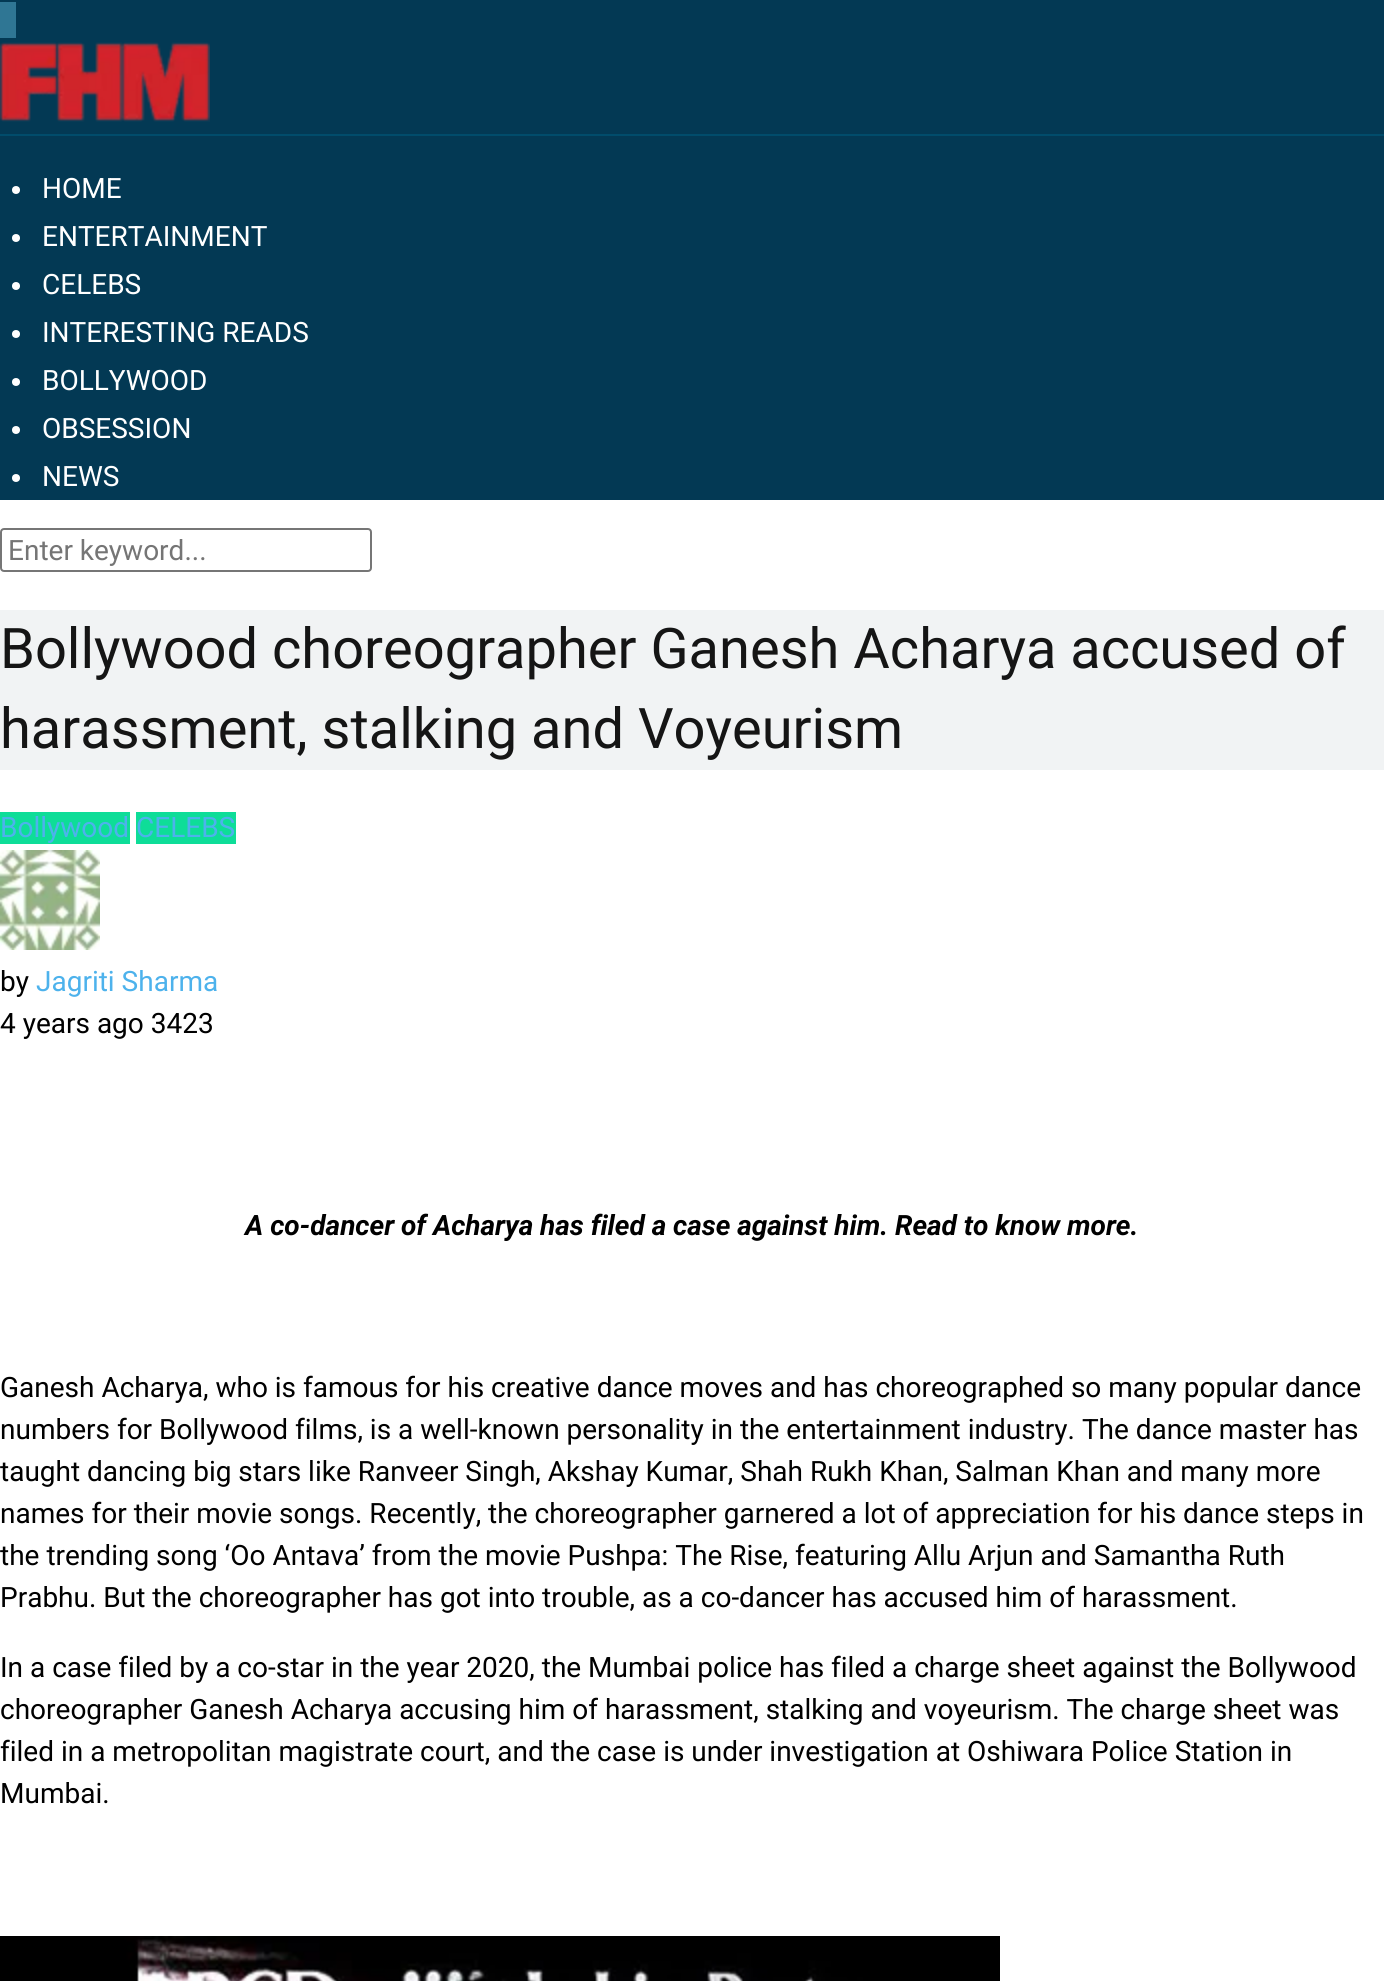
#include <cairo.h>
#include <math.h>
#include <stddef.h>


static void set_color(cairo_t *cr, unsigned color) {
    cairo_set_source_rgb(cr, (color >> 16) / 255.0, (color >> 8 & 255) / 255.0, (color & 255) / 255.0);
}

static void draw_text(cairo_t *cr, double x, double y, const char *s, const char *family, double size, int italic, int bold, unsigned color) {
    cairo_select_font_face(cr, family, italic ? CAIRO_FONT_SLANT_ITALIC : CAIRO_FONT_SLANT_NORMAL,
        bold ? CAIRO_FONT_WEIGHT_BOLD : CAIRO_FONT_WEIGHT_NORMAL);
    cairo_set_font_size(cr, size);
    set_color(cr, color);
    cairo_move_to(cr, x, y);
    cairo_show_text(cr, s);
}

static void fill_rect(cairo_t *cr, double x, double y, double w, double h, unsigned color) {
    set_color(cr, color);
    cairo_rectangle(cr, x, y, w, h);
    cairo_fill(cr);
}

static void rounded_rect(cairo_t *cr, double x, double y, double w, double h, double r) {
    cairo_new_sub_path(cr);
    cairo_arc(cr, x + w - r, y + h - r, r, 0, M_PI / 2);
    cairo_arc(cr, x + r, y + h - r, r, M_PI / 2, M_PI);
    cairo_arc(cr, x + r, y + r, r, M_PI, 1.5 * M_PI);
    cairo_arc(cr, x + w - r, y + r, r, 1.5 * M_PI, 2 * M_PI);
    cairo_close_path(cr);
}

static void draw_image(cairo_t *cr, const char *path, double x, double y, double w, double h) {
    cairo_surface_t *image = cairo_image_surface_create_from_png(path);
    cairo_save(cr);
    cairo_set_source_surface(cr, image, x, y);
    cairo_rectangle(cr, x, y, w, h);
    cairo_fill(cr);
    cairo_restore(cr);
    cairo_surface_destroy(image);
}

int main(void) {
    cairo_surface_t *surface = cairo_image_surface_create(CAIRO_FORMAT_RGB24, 1384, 1981);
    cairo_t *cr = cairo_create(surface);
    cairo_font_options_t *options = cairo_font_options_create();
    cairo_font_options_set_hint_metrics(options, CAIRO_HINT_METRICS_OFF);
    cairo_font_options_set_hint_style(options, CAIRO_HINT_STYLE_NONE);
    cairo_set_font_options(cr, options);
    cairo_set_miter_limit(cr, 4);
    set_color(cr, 0xFFFFFF);
    cairo_paint(cr);
    fill_rect(cr, 0, 0, 1384, 500, 0x033954);
    fill_rect(cr, 0, 134, 1384, 2, 0x014C6B);
    fill_rect(cr, 0, 2, 16, 36, 0x2F7694);
    draw_image(cr, "assets/img1.png", 0, 42, 210, 80);
    set_color(cr, 0xFFFFFF);
    cairo_arc(cr, 16, 190, 4, 0, 2 * M_PI);
    cairo_fill(cr);
    draw_text(cr, 42, 198, "HOME", "Roboto", 28, 0, 0, 0xFFFFFF);
    cairo_new_path(cr);
    cairo_arc(cr, 16, 238, 4, 0, 2 * M_PI);
    cairo_fill(cr);
    draw_text(cr, 42, 246, "ENTERTAINMENT", "Roboto", 28, 0, 0, 0xFFFFFF);
    cairo_new_path(cr);
    cairo_arc(cr, 16, 286, 4, 0, 2 * M_PI);
    cairo_fill(cr);
    draw_text(cr, 42, 294, "CELEBS", "Roboto", 28, 0, 0, 0xFFFFFF);
    cairo_new_path(cr);
    cairo_arc(cr, 16, 334, 4, 0, 2 * M_PI);
    cairo_fill(cr);
    draw_text(cr, 42, 342, "INTERESTING READS", "Roboto", 28, 0, 0, 0xFFFFFF);
    cairo_new_path(cr);
    cairo_arc(cr, 16, 382, 4, 0, 2 * M_PI);
    cairo_fill(cr);
    draw_text(cr, 42, 390, "BOLLYWOOD", "Roboto", 28, 0, 0, 0xFFFFFF);
    cairo_new_path(cr);
    cairo_arc(cr, 16, 430, 4, 0, 2 * M_PI);
    cairo_fill(cr);
    draw_text(cr, 42, 438, "OBSESSION", "Roboto", 28, 0, 0, 0xFFFFFF);
    cairo_new_path(cr);
    cairo_arc(cr, 16, 478, 4, 0, 2 * M_PI);
    cairo_fill(cr);
    draw_text(cr, 42, 486, "NEWS", "Roboto", 28, 0, 0, 0xFFFFFF);
    rounded_rect(cr, 1, 529, 370, 42, 3);
    set_color(cr, 0x767676);
    cairo_stroke(cr);
    draw_text(cr, 8, 560, "Enter keyword...", "Roboto", 28, 0, 0, 0x757575);
    fill_rect(cr, 0, 610, 1384, 160, 0xF1F3F4);
    draw_text(cr, 0, 668, "Bollywood choreographer Ganesh Acharya accused of", "Roboto", 56, 0, 0, 0x151515);
    draw_text(cr, 0, 748, "harassment, stalking and Voyeurism", "Roboto", 56, 0, 0, 0x151515);
    fill_rect(cr, 0, 812, 130, 32, 0x0EDD98);
    draw_text(cr, 0, 837, "Bollywood", "Roboto", 28, 0, 0, 0x4DB2EC);
    fill_rect(cr, 136, 812, 100, 32, 0x0EDD98);
    draw_text(cr, 136, 837, "CELEBS", "Roboto", 28, 0, 0, 0x4DB2EC);
    draw_image(cr, "assets/img2.png", 0, 850, 100, 100);
    draw_text(cr, 0, 991, "by", "Roboto", 28, 0, 0, 0x000000);
    draw_text(cr, 36, 991, "Jagriti Sharma", "Roboto", 28, 0, 0, 0x4DB2EC);
    draw_text(cr, 0, 1033, "4 years ago 3423", "Roboto", 28, 0, 0, 0x000000);
    draw_text(cr, 245, 1235, "A co-dancer of Acharya has filed a case against him. Read to know more.", "Roboto", 28, 1, 1, 0x000000);
    draw_text(cr, 0, 1397, "Ganesh Acharya, who is famous for his creative dance moves and has choreographed so many popular dance", "Roboto", 28, 0, 0, 0x000000);
    draw_text(cr, 0, 1439, "numbers for Bollywood films, is a well-known personality in the entertainment industry. The dance master has", "Roboto", 28, 0, 0, 0x000000);
    draw_text(cr, 0, 1481, "taught dancing big stars like Ranveer Singh, Akshay Kumar, Shah Rukh Khan, Salman Khan and many more", "Roboto", 28, 0, 0, 0x000000);
    draw_text(cr, 0, 1523, "names for their movie songs. Recently, the choreographer garnered a lot of appreciation for his dance steps in", "Roboto", 28, 0, 0, 0x000000);
    draw_text(cr, 0, 1565, "the trending song ‘Oo Antava’ from the movie Pushpa: The Rise, featuring Allu Arjun and Samantha Ruth", "Roboto", 28, 0, 0, 0x000000);
    draw_text(cr, 0, 1607, "Prabhu. But the choreographer has got into trouble, as a co-dancer has accused him of harassment.", "Roboto", 28, 0, 0, 0x000000);
    draw_text(cr, 0, 1677, "In a case filed by a co-star in the year 2020, the Mumbai police has filed a charge sheet against the Bollywood", "Roboto", 28, 0, 0, 0x000000);
    draw_text(cr, 0, 1719, "choreographer Ganesh Acharya accusing him of harassment, stalking and voyeurism. The charge sheet was", "Roboto", 28, 0, 0, 0x000000);
    draw_text(cr, 0, 1761, "filed in a metropolitan magistrate court, and the case is under investigation at Oshiwara Police Station in", "Roboto", 28, 0, 0, 0x000000);
    draw_text(cr, 0, 1803, "Mumbai.", "Roboto", 28, 0, 0, 0x000000);
    draw_image(cr, "assets/img3.png", 0, 1936, 1000, 45);
    cairo_surface_write_to_png(surface, "output.png");
    cairo_font_options_destroy(options);
    cairo_destroy(cr);
    cairo_surface_destroy(surface);
    return 0;
}
